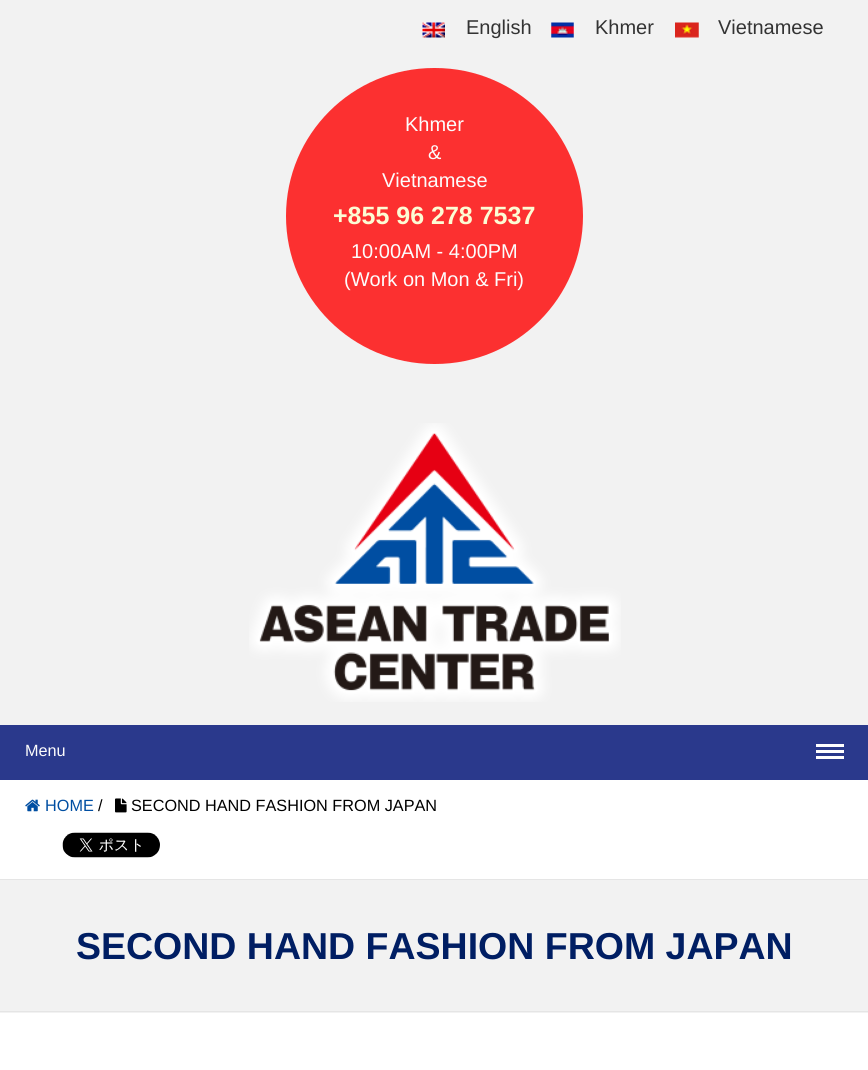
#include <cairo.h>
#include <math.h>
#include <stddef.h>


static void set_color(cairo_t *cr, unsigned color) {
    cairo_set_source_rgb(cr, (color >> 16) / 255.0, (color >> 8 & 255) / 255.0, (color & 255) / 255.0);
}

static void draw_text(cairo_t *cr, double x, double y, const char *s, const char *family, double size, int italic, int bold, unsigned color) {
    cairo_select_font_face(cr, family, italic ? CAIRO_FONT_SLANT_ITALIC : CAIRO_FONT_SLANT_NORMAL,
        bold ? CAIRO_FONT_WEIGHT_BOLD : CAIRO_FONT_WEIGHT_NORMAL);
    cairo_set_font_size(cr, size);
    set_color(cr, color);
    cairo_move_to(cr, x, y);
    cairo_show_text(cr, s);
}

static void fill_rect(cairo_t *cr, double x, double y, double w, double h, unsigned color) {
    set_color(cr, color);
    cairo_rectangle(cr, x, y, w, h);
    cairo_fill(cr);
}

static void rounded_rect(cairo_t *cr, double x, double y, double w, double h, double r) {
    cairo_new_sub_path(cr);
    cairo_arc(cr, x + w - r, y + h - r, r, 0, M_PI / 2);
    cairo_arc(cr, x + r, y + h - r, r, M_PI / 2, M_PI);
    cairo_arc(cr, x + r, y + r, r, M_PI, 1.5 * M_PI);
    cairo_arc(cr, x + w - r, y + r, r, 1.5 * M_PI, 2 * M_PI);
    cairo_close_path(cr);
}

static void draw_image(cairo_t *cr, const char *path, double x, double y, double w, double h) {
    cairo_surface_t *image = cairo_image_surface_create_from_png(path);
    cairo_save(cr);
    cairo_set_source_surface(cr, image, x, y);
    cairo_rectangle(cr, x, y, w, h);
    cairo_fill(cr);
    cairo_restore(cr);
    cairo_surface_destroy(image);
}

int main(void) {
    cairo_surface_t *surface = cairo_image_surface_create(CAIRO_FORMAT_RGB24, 868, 1070);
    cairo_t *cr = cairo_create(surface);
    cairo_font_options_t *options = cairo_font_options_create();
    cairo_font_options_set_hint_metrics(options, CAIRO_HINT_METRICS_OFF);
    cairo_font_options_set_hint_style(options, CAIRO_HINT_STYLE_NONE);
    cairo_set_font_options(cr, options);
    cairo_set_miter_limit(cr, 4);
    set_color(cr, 0xFFFFFF);
    cairo_paint(cr);
    fill_rect(cr, 0, 0, 868, 725, 0xF2F2F2);
    draw_image(cr, "assets/img1.png", 422, 22, 23, 16);
    draw_text(cr, 466, 34, "English", "Liberation Sans", 20, 0, 0, 0x333333);
    draw_image(cr, "assets/img2.png", 551, 22, 23, 16);
    draw_text(cr, 595, 34, "Khmer", "Liberation Sans", 20, 0, 0, 0x333333);
    draw_image(cr, "assets/img3.png", 675, 22, 24, 16);
    draw_text(cr, 718, 34, "Vietnamese", "Liberation Sans", 20, 0, 0, 0x333333);
    set_color(cr, 0xFC3030);
    rounded_rect(cr, 286, 68, 297, 296, 148);
    cairo_fill(cr);
    draw_text(cr, 405, 131, "Khmer", "Liberation Sans", 20, 0, 0, 0xFCFCFC);
    draw_text(cr, 428, 159, "&", "Liberation Sans", 20, 0, 0, 0xFCFCFC);
    draw_text(cr, 382, 187, "Vietnamese", "Liberation Sans", 20, 0, 0, 0xFCFCFC);
    draw_text(cr, 333, 224, "+855 96 278 7537", "Liberation Sans", 25, 0, 1, 0xFCFCD4);
    draw_text(cr, 351, 258, "10:00AM - 4:00PM", "Liberation Sans", 20, 0, 0, 0xFCFCFC);
    draw_text(cr, 344, 286, "(Work on Mon & Fri)", "Liberation Sans", 20, 0, 0, 0xFCFCFC);
    draw_image(cr, "assets/img4.png", 249, 423, 372, 279);
    fill_rect(cr, 0, 725, 868, 55, 0x2A398C);
    draw_text(cr, 25, 756, "Menu", "Liberation Sans", 16.25, 0, 0, 0xFCFCFC);
    fill_rect(cr, 816, 744, 28, 3, 0xFFFFFF);
    fill_rect(cr, 816, 750, 28, 3, 0xFFFFFF);
    fill_rect(cr, 816, 756, 28, 3, 0xFFFFFF);
    fill_rect(cr, 0, 879, 868, 1, 0xE5E5E5);
    draw_image(cr, "assets/img5.png", 25, 799, 15, 13);
    draw_text(cr, 45, 811, "HOME", "Liberation Sans", 16.25, 0, 0, 0x004EA2);
    draw_text(cr, 98, 811, "/", "Liberation Sans", 16.25, 0, 0, 0x000000);
    draw_image(cr, "assets/img6.png", 115, 798, 12, 15);
    draw_text(cr, 131, 811, "SECOND HAND FASHION FROM JAPAN", "Liberation Sans", 16.25, 0, 0, 0x000000);
    draw_image(cr, "assets/img7.png", 62, 832, 98, 26);
    fill_rect(cr, 0, 880, 868, 133, 0xF2F2F2);
    fill_rect(cr, 0, 1011, 868, 1, 0xE5E5E5);
    draw_text(cr, 76, 959, "SECOND HAND FASHION FROM JAPAN", "Liberation Sans", 37.5, 0, 1, 0x001E63);
    cairo_surface_write_to_png(surface, "output.png");
    cairo_font_options_destroy(options);
    cairo_destroy(cr);
    cairo_surface_destroy(surface);
    return 0;
}
